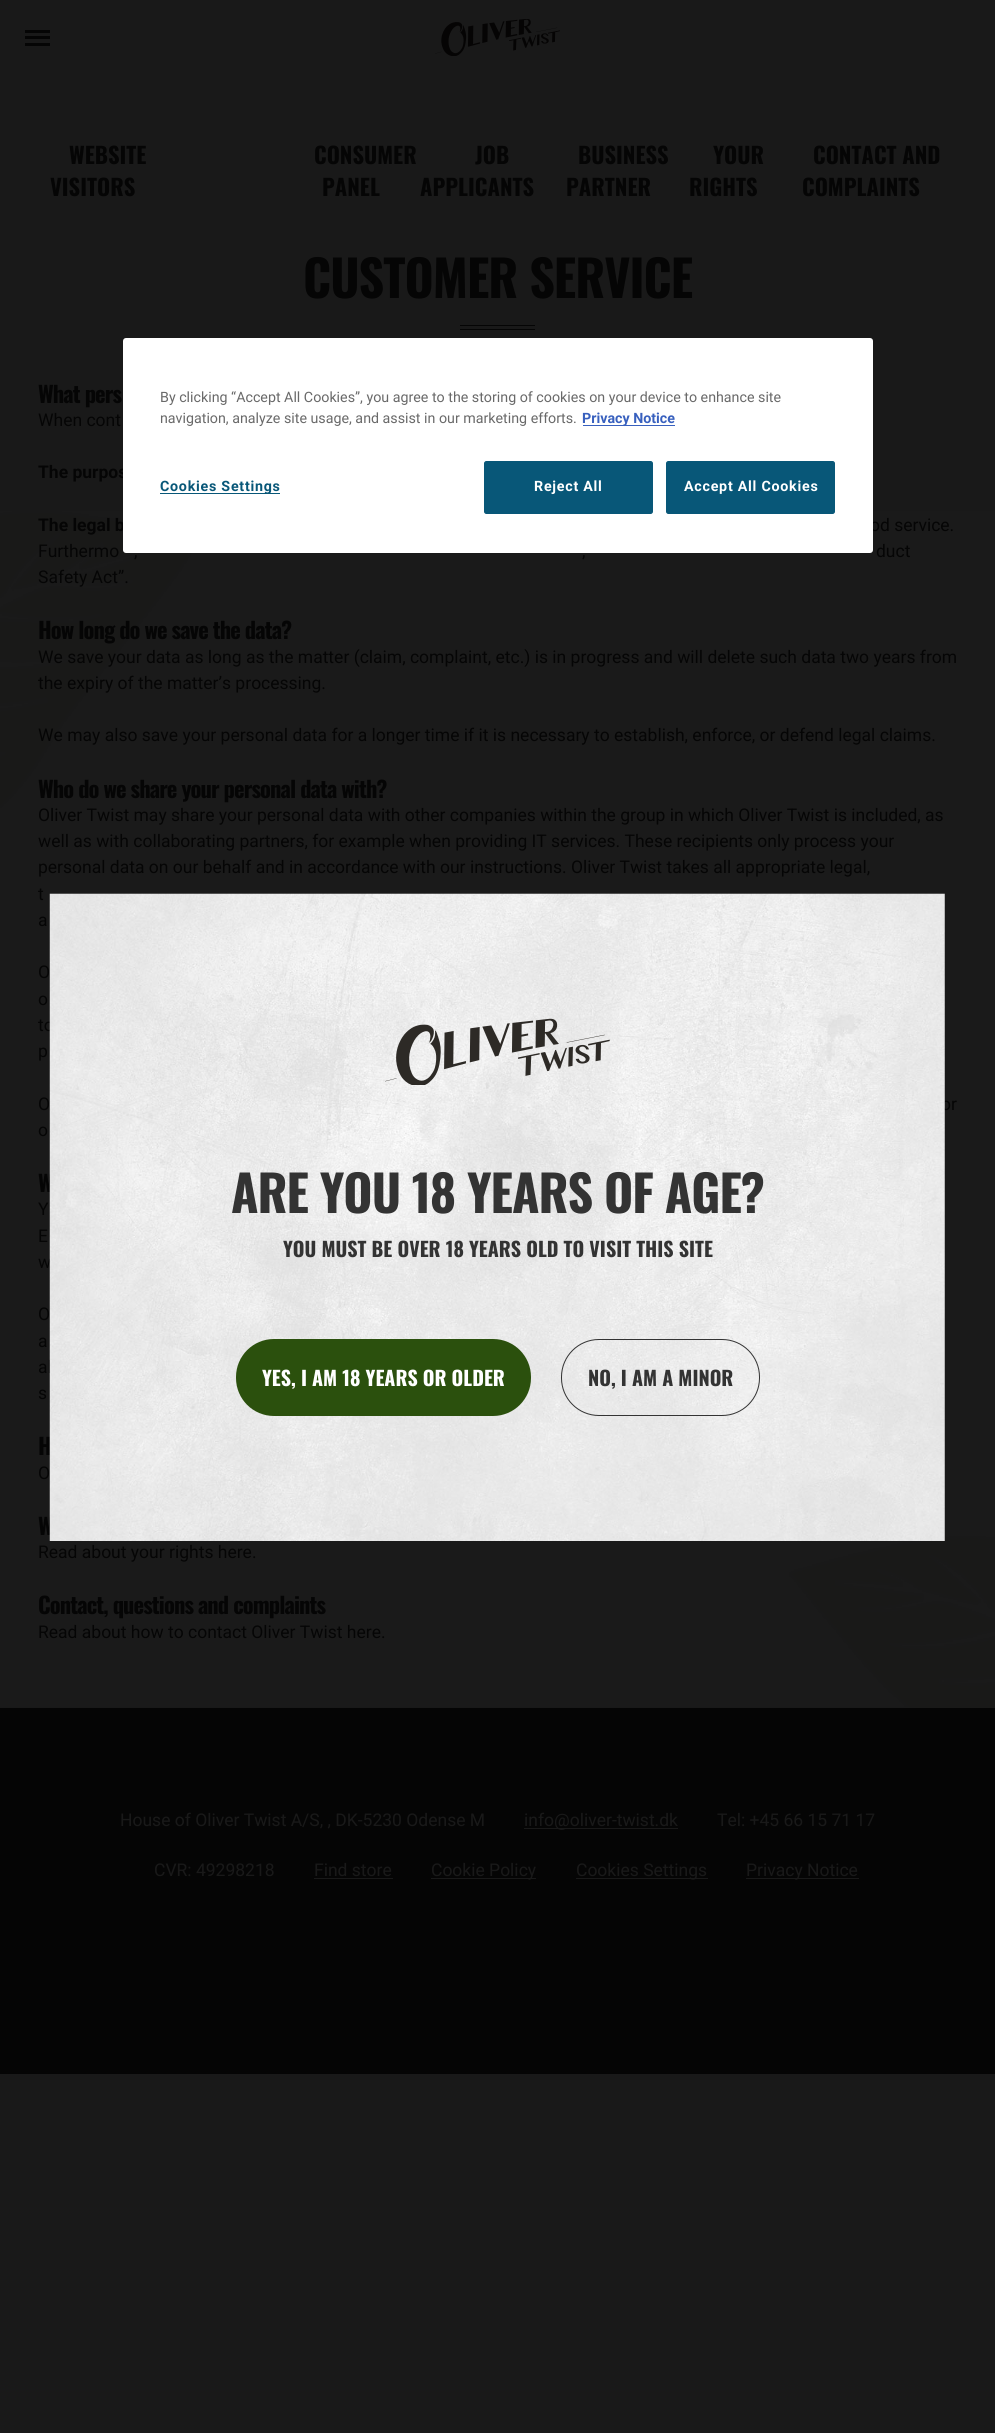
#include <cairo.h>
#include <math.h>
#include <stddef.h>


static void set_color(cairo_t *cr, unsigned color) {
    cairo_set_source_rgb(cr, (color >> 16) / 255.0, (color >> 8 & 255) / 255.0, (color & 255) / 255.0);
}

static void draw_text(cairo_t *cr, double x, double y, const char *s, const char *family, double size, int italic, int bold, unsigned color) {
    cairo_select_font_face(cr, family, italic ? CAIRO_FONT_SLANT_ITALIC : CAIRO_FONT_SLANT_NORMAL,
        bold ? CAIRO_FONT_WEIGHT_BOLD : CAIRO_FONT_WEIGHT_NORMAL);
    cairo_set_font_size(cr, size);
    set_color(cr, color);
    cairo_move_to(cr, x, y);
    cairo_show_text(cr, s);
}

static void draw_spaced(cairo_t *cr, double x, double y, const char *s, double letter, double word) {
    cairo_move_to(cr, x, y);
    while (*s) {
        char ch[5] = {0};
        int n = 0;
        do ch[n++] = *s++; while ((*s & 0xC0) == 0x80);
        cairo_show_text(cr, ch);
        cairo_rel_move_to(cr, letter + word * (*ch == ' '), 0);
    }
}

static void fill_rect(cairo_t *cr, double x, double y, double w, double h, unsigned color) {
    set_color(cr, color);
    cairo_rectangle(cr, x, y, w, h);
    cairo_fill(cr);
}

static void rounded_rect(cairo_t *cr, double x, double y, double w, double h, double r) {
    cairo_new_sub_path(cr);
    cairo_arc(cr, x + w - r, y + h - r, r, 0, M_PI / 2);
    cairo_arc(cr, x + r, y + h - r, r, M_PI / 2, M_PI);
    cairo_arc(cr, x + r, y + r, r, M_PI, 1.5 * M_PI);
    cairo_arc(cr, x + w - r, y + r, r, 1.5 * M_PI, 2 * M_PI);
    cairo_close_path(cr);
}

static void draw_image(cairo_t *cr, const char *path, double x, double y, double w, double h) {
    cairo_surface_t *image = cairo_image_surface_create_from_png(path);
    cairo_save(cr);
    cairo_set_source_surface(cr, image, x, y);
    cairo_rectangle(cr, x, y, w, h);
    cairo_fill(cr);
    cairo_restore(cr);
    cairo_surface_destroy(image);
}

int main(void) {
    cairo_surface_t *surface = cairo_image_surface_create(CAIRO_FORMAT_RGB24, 995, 2433);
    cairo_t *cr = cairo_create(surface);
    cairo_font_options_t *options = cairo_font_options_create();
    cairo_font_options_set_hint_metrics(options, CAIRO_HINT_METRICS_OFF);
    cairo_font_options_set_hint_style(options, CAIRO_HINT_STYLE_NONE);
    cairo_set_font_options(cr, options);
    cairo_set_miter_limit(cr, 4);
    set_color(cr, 0x191919);
    cairo_paint(cr);
    fill_rect(cr, 25, 30, 25, 3, 0x050505);
    fill_rect(cr, 25, 36, 25, 3, 0x050505);
    fill_rect(cr, 25, 43, 25, 3, 0x050505);
    draw_image(cr, "assets/img1.png", 435, 19, 125, 37);
    draw_text(cr, 69, 164, "WEBSITE", "Oswald", 22.5, 0, 1, 0x050505);
    draw_text(cr, 50, 196, "VISITORS", "Oswald", 22.5, 0, 1, 0x050505);
    draw_text(cr, 314, 164, "CONSUMER", "Oswald", 22.5, 0, 1, 0x050505);
    draw_text(cr, 322, 196, "PANEL", "Oswald", 22.5, 0, 1, 0x050505);
    draw_text(cr, 475, 164, "JOB", "Oswald", 22.5, 0, 1, 0x050505);
    draw_text(cr, 420, 196, "APPLICANTS", "Oswald", 22.5, 0, 1, 0x050505);
    draw_text(cr, 578, 164, "BUSINESS", "Oswald", 22.5, 0, 1, 0x050505);
    draw_text(cr, 566, 196, "PARTNER", "Oswald", 22.5, 0, 1, 0x050505);
    draw_text(cr, 713, 164, "YOUR", "Oswald", 22.5, 0, 1, 0x050505);
    draw_text(cr, 689, 196, "RIGHTS", "Oswald", 22.5, 0, 1, 0x050505);
    draw_text(cr, 813, 164, "CONTACT AND", "Oswald", 22.5, 0, 1, 0x050505);
    draw_text(cr, 802, 196, "COMPLAINTS", "Oswald", 22.5, 0, 1, 0x050505);
    cairo_set_font_size(cr, 50);
    draw_spaced(cr, 303, 298, "CUSTOMER SERVICE", -1, 0);
    fill_rect(cr, 460, 325, 75, 1, 0x050505);
    fill_rect(cr, 460, 329, 75, 1, 0x050505);
    cairo_set_font_size(cr, 22.5);
    draw_spaced(cr, 38, 403, "What pers", -0.9, 0);
    draw_text(cr, 38, 426, "When cont", "Roboto", 17.5, 0, 0, 0x050505);
    draw_text(cr, 38, 478, "The purpos", "Roboto", 17.5, 0, 1, 0x050505);
    draw_image(cr, "assets/img2.png", 0, 511, 995, 1197);
    draw_text(cr, 38, 531, "The legal b", "Roboto", 17.5, 0, 1, 0x050505);
    draw_text(cr, 870, 531, "od service.", "Roboto", 17.5, 0, 0, 0x050505);
    draw_text(cr, 38, 557, "Furthermo", "Roboto", 17.5, 0, 0, 0x050505);
    draw_text(cr, 134, 557, ",", "Roboto", 17.5, 0, 0, 0x050505);
    draw_text(cr, 582, 557, ",", "Roboto", 17.5, 0, 0, 0x050505);
    draw_text(cr, 876, 557, "duct", "Roboto", 17.5, 0, 0, 0x050505);
    draw_text(cr, 38, 583, "Safety Act”.", "Roboto", 17.5, 0, 0, 0x050505);
    cairo_select_font_face(cr, "Oswald", CAIRO_FONT_SLANT_NORMAL, CAIRO_FONT_WEIGHT_BOLD);
    cairo_set_font_size(cr, 22.5);
    draw_spaced(cr, 38, 639, "How long do we save the data?", -0.9, 0);
    draw_text(cr, 38, 663, "We save your data as long as the matter (claim, complaint, etc.) is in progress and will delete such data two years from", "Roboto", 17.5, 0, 0, 0x050505);
    draw_text(cr, 38, 689, "the expiry of the matter’s processing.", "Roboto", 17.5, 0, 0, 0x050505);
    draw_text(cr, 38, 741, "We may also save your personal data for a longer time if it is necessary to establish, enforce, or defend legal claims.", "Roboto", 17.5, 0, 0, 0x050505);
    cairo_select_font_face(cr, "Oswald", CAIRO_FONT_SLANT_NORMAL, CAIRO_FONT_WEIGHT_BOLD);
    cairo_set_font_size(cr, 22.5);
    draw_spaced(cr, 38, 798, "Who do we share your personal data with?", -0.9, 0);
    draw_text(cr, 38, 821, "Oliver Twist may share your personal data with other companies within the group in which Oliver Twist is included, as", "Roboto", 17.5, 0, 0, 0x050505);
    draw_text(cr, 38, 847, "well as with collaborating partners, for example when providing IT services. These recipients only process your", "Roboto", 17.5, 0, 0, 0x050505);
    draw_text(cr, 38, 873, "personal data on our behalf and in accordance with our instructions. Oliver Twist takes all appropriate legal,", "Roboto", 17.5, 0, 0, 0x050505);
    draw_text(cr, 38, 900, "t", "Roboto", 17.5, 0, 0, 0x050505);
    draw_text(cr, 38, 926, "a", "Roboto", 17.5, 0, 0, 0x050505);
    draw_text(cr, 38, 978, "O", "Roboto", 17.5, 0, 0, 0x050505);
    draw_text(cr, 38, 1005, "o", "Roboto", 17.5, 0, 0, 0x050505);
    draw_text(cr, 38, 1031, "to", "Roboto", 17.5, 0, 0, 0x050505);
    draw_text(cr, 38, 1057, "p", "Roboto", 17.5, 0, 0, 0x050505);
    draw_text(cr, 38, 1110, "O", "Roboto", 17.5, 0, 0, 0x050505);
    draw_text(cr, 941, 1110, "or", "Roboto", 17.5, 0, 0, 0x050505);
    draw_text(cr, 38, 1136, "o", "Roboto", 17.5, 0, 0, 0x050505);
    cairo_select_font_face(cr, "Oswald", CAIRO_FONT_SLANT_NORMAL, CAIRO_FONT_WEIGHT_BOLD);
    cairo_set_font_size(cr, 22.5);
    draw_spaced(cr, 38, 1192, "W", -0.9, 0);
    draw_text(cr, 38, 1215, "Y", "Roboto", 17.5, 0, 0, 0x050505);
    draw_text(cr, 38, 1242, "E", "Roboto", 17.5, 0, 0, 0x050505);
    draw_text(cr, 38, 1268, "w", "Roboto", 17.5, 0, 0, 0x050505);
    draw_text(cr, 38, 1320, "O", "Roboto", 17.5, 0, 0, 0x050505);
    draw_text(cr, 38, 1347, "a", "Roboto", 17.5, 0, 0, 0x050505);
    draw_text(cr, 38, 1373, "al", "Roboto", 17.5, 0, 0, 0x050505);
    draw_text(cr, 38, 1399, "s", "Roboto", 17.5, 0, 0, 0x050505);
    cairo_select_font_face(cr, "Oswald", CAIRO_FONT_SLANT_NORMAL, CAIRO_FONT_WEIGHT_BOLD);
    cairo_set_font_size(cr, 22.5);
    draw_spaced(cr, 38, 1455, "H", -0.9, 0);
    draw_text(cr, 38, 1479, "O", "Roboto", 17.5, 0, 0, 0x050505);
    cairo_select_font_face(cr, "Oswald", CAIRO_FONT_SLANT_NORMAL, CAIRO_FONT_WEIGHT_BOLD);
    cairo_set_font_size(cr, 22.5);
    draw_spaced(cr, 38, 1535, "W", -0.9, 0);
    draw_text(cr, 38, 1558, "Read about your rights here.", "Roboto", 17.5, 0, 0, 0x050505);
    cairo_select_font_face(cr, "Oswald", CAIRO_FONT_SLANT_NORMAL, CAIRO_FONT_WEIGHT_BOLD);
    cairo_set_font_size(cr, 22.5);
    draw_spaced(cr, 38, 1614, "Contact, questions and complaints", -0.9, 0);
    draw_text(cr, 38, 1638, "Read about how to contact Oliver Twist here.", "Roboto", 17.5, 0, 0, 0x050505);
    set_color(cr, 0xFFFFFF);
    rounded_rect(cr, 123, 338, 750, 215, 3);
    cairo_fill(cr);
    draw_text(cr, 160, 402, "By clicking “Accept All Cookies”, you agree to the storing of cookies on your device to enhance site", "Roboto", 14.25, 0, 0, 0x696969);
    draw_text(cr, 160, 423, "navigation, analyze site usage, and assist in our marketing efforts.", "Roboto", 14.25, 0, 0, 0x696969);
    fill_rect(cr, 583, 425, 92, 1, 0x3860BE);
    draw_text(cr, 582, 423, "Privacy Notice", "Roboto", 14.25, 0, 1, 0x3860BE);
    fill_rect(cr, 160, 493, 120, 1, 0x085778);
    draw_spaced(cr, 160, 491, "Cookies Settings", 0.75, 0);
    rounded_rect(cr, 484.5, 461.5, 168, 52, 2);
    cairo_fill_preserve(cr);
    cairo_set_line_width(cr, 1);
    cairo_stroke(cr);
    set_color(cr, 0xFFFFFF);
    draw_spaced(cr, 534, 491, "Reject All", 0.75, 0);
    set_color(cr, 0x085778);
    rounded_rect(cr, 666.5, 461.5, 168, 52, 2);
    cairo_fill_preserve(cr);
    cairo_stroke(cr);
    set_color(cr, 0xFFFFFF);
    draw_spaced(cr, 684, 491, "Accept All Cookies", 0.75, 0);
    draw_image(cr, "assets/img3.png", 49, 893, 896, 648);
    draw_image(cr, "assets/img4.png", 385, 1018, 225, 67);
    cairo_select_font_face(cr, "Oswald", CAIRO_FONT_SLANT_NORMAL, CAIRO_FONT_WEIGHT_BOLD);
    cairo_set_font_size(cr, 50);
    set_color(cr, 0x333333);
    draw_spaced(cr, 231, 1213, "ARE YOU 18 YEARS OF AGE?", -1, 0);
    draw_text(cr, 283, 1257, "YOU MUST BE OVER 18 YEARS OLD TO VISIT THIS SITE", "Oswald", 20, 0, 1, 0x333333);
    set_color(cr, 0x2B500D);
    rounded_rect(cr, 236, 1339, 295, 77, 38);
    cairo_fill(cr);
    draw_text(cr, 262, 1386, "YES, I AM 18 YEARS OR OLDER", "Oswald", 20, 0, 1, 0xFFFFFF);
    rounded_rect(cr, 561.5, 1339.5, 198, 76, 37.5);
    set_color(cr, 0x333333);
    cairo_stroke(cr);
    draw_text(cr, 588, 1386, "NO, I AM A MINOR", "Oswald", 20, 0, 1, 0x333333);
    fill_rect(cr, 0, 1708, 995, 366, 0x050505);
    draw_text(cr, 120, 1826, "House of Oliver Twist A/S, , DK-5230 Odense M", "Roboto", 17.5, 0, 0, 0x191919);
    fill_rect(cr, 524, 1828, 154, 1, 0x191919);
    draw_text(cr, 524, 1826, "info@oliver-twist.dk", "Roboto", 17.5, 0, 0, 0x191919);
    draw_text(cr, 717, 1826, "Tel: +45 66 15 71 17", "Roboto", 17.5, 0, 0, 0x191919);
    draw_text(cr, 154, 1876, "CVR: 49298218", "Roboto", 17.5, 0, 0, 0x191919);
    draw_text(cr, 314, 1876, "Find store", "Roboto", 17.5, 0, 0, 0x191919);
    fill_rect(cr, 314, 1878, 79, 1, 0x191919);
    fill_rect(cr, 431, 1878, 105, 1, 0x191919);
    draw_text(cr, 431, 1876, "Cookie Policy", "Roboto", 17.5, 0, 0, 0x191919);
    fill_rect(cr, 576, 1878, 132, 1, 0x191919);
    draw_text(cr, 576, 1876, "Cookies Settings", "Roboto", 17.5, 0, 0, 0x191919);
    fill_rect(cr, 746, 1878, 113, 1, 0x191919);
    draw_text(cr, 746, 1876, "Privacy Notice", "Roboto", 17.5, 0, 0, 0x191919);
    cairo_surface_write_to_png(surface, "output.png");
    cairo_font_options_destroy(options);
    cairo_destroy(cr);
    cairo_surface_destroy(surface);
    return 0;
}
